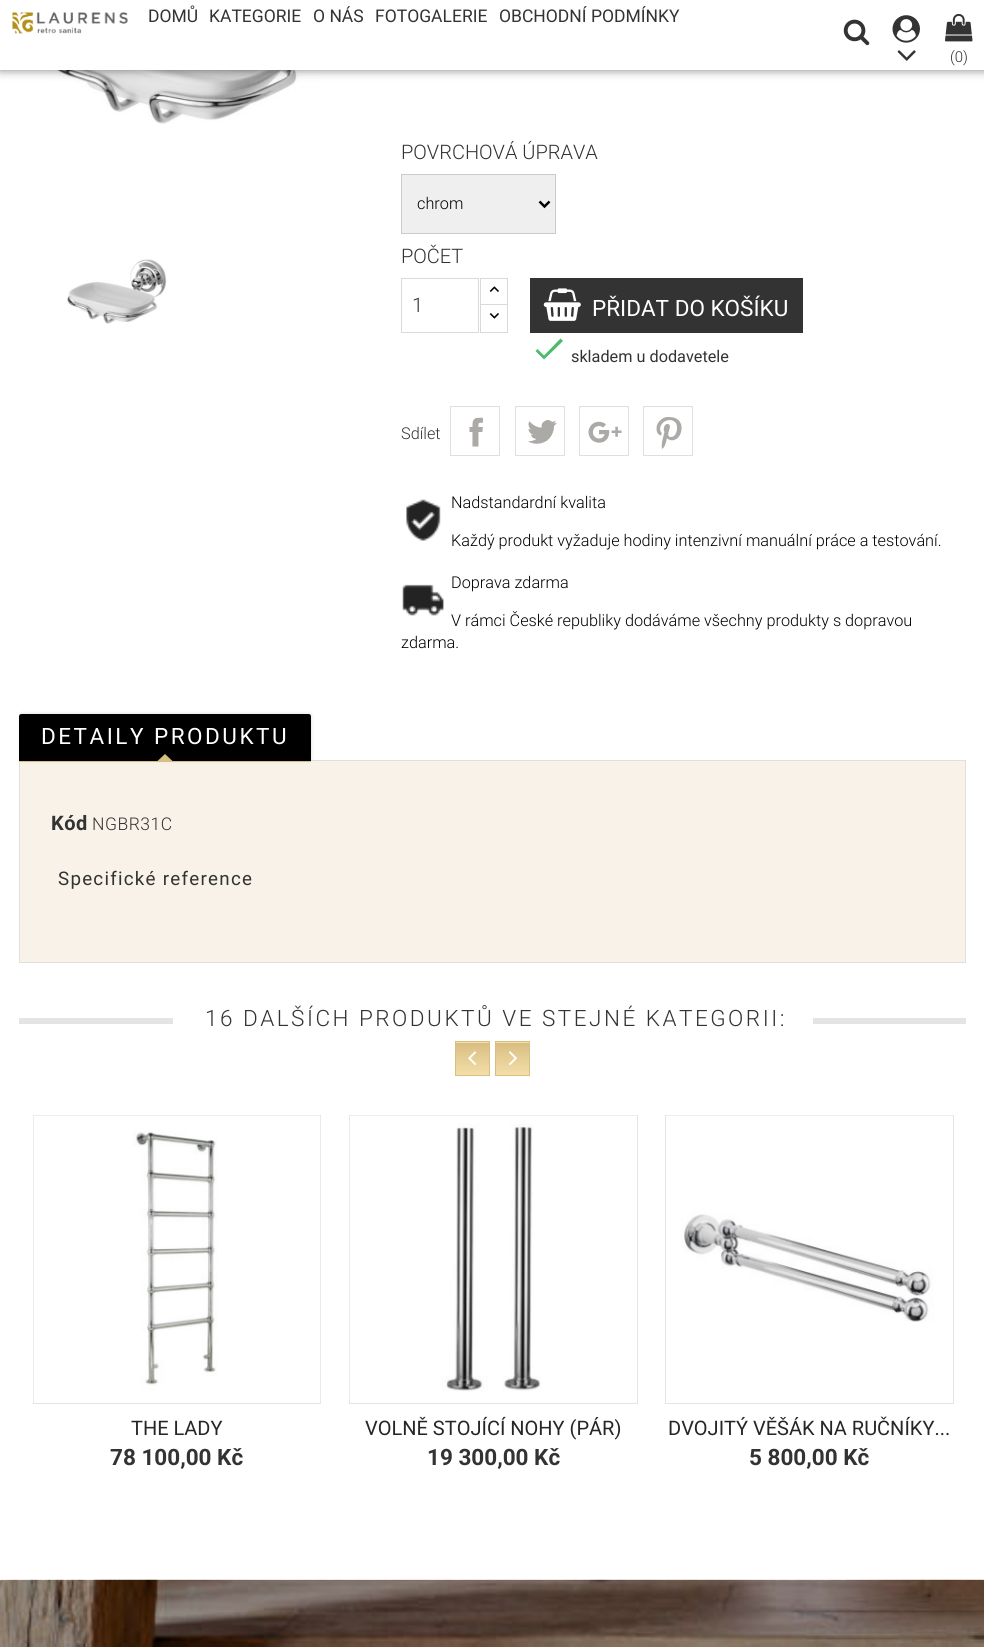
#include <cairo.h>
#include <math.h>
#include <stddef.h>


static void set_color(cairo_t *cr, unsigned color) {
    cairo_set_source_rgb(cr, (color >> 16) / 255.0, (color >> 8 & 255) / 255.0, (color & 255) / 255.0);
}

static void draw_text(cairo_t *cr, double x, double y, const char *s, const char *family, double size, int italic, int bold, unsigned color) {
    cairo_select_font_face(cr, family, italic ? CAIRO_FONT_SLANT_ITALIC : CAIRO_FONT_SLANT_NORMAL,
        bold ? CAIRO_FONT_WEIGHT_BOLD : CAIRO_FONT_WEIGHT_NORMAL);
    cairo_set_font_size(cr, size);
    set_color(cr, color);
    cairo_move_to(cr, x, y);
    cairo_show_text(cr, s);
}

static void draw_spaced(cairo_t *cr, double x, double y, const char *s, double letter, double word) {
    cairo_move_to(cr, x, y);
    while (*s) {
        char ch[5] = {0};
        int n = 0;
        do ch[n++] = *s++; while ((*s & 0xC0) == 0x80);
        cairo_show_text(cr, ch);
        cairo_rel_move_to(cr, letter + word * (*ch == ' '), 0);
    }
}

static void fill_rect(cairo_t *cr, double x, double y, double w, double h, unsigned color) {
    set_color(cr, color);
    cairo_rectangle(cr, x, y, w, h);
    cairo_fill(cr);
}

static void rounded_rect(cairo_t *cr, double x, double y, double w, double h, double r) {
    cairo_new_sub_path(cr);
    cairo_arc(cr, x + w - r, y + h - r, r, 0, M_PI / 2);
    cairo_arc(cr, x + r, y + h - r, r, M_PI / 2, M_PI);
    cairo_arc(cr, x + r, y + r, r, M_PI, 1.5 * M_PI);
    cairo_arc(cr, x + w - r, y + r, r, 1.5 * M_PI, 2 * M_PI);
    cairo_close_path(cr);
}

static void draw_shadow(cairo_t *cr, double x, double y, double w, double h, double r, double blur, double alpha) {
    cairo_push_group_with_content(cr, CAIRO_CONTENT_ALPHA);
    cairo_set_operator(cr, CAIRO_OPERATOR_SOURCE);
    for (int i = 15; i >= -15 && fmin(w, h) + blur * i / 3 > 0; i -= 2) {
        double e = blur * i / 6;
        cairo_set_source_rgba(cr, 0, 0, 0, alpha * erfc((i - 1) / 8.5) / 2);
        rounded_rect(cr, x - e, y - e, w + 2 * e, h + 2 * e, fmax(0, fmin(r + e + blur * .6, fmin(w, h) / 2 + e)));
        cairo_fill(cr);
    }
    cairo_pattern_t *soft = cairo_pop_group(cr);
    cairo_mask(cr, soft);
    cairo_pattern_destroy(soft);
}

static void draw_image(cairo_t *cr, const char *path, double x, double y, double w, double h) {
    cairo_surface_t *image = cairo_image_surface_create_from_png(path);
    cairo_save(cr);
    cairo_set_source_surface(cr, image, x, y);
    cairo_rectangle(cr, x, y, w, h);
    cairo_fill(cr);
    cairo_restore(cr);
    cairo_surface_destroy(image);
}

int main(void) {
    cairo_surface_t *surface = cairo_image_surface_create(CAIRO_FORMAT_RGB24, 984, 1647);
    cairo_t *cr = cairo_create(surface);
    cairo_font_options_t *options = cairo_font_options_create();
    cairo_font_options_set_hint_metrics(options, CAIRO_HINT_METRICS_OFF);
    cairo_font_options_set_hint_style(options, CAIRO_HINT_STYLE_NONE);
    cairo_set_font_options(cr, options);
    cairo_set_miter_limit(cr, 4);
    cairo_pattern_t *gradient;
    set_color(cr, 0xFFFFFF);
    cairo_paint(cr);
    fill_rect(cr, 0, 1580, 1, 2, 0xA6A6A6);
    draw_image(cr, "assets/img6.png", 48, 70, 274, 54);
    set_color(cr, 0x000000);
    draw_shadow(cr, 0, 0, 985, 70, 0, 5, 0.5);
    fill_rect(cr, 0, 0, 984, 70, 0xFFFFFF);
    draw_image(cr, "assets/img1.png", 12, 12, 116, 22);
    draw_text(cr, 148, 22, "DOMŮ", "Roboto", 17.5, 0, 0, 0x333333);
    draw_text(cr, 209, 22, "KATEGORIE", "Roboto", 17.5, 0, 0, 0x333333);
    draw_text(cr, 313, 22, "O NÁS", "Roboto", 17.5, 0, 0, 0x333333);
    draw_text(cr, 375, 22, "FOTOGALERIE", "Roboto", 17.5, 0, 0, 0x333333);
    draw_text(cr, 499, 22, "OBCHODNÍ PODMÍNKY", "Roboto", 17.5, 0, 0, 0x333333);
    draw_image(cr, "assets/img2.png", 843, 19, 27, 27);
    draw_image(cr, "assets/img3.png", 892, 15, 28, 28);
    draw_image(cr, "assets/img4.png", 897, 50, 19, 11);
    draw_image(cr, "assets/img5.png", 945, 13, 28, 29);
    draw_text(cr, 950, 62, "(0)", "Roboto Light", 15, 0, 0, 0x333333);
    draw_image(cr, "assets/img7.png", 67, 259, 100, 65);
    draw_text(cr, 401, 159, "POVRCHOVÁ ÚPRAVA", "Roboto Light", 20, 0, 0, 0x333333);
    set_color(cr, 0xEFEFEF);
    cairo_rectangle(cr, 401.5, 174.5, 154, 59);
    cairo_fill_preserve(cr);
    set_color(cr, 0xCBCBCB);
    cairo_set_line_width(cr, 1);
    cairo_stroke(cr);
    cairo_new_path(cr);
    cairo_move_to(cr, 539.5, 201.5);
    cairo_line_to(cr, 544.5, 206.5);
    cairo_line_to(cr, 549.5, 201.5);
    set_color(cr, 0x000000);
    cairo_set_line_width(cr, 2.5);
    cairo_stroke(cr);
    draw_text(cr, 417, 209, "chrom", "Roboto Light", 16.25, 0, 0, 0x000000);
    draw_text(cr, 401, 263, "POČET", "Roboto Light", 20, 0, 0, 0x333333);
    cairo_rectangle(cr, 401.5, 278.5, 77, 54);
    set_color(cr, 0xD9D9D9);
    cairo_set_line_width(cr, 1);
    cairo_stroke(cr);
    draw_text(cr, 412, 312, "1", "Roboto Light", 20, 0, 0, 0x333333);
    cairo_rectangle(cr, 480.5, 278.5, 27, 27);
    set_color(cr, 0xD9D9D9);
    cairo_stroke(cr);
    draw_image(cr, "assets/img8.png", 489, 286, 10, 6);
    fill_rect(cr, 481, 305, 26, 1, 0xFFFFFF);
    cairo_rectangle(cr, 480.5, 304.5, 27, 28);
    set_color(cr, 0xD9D9D9);
    cairo_stroke(cr);
    draw_image(cr, "assets/img9.png", 489, 313, 10, 6);
    fill_rect(cr, 530, 278, 273, 55, 0x333333);
    draw_image(cr, "assets/img10.png", 543, 288, 38, 33);
    draw_text(cr, 592, 316, "PŘIDAT DO KOŠÍKU", "Roboto", 22.5, 0, 0, 0xFFFFFF);
    set_color(cr, 0x4CBB6C);
    cairo_new_path(cr);
    cairo_move_to(cr, 544, 355.5);
    cairo_line_to(cr, 560.5, 338.5);
    cairo_line_to(cr, 563, 341);
    cairo_line_to(cr, 544, 359.5);
    cairo_line_to(cr, 535.5, 351);
    cairo_line_to(cr, 537.5, 349);
    cairo_close_path(cr);
    cairo_fill(cr);
    draw_text(cr, 571, 362, "skladem u dodavetele", "Roboto", 16.25, 0, 0, 0x333333);
    draw_text(cr, 401, 439, "Sdílet", "Roboto Light", 16.25, 0, 0, 0x333333);
    draw_image(cr, "assets/img11.png", 469, 417, 14, 30);
    cairo_rectangle(cr, 450.5, 406.5, 49, 49);
    set_color(cr, 0xDFDFDF);
    cairo_stroke(cr);
    draw_image(cr, "assets/img12.png", 528, 420, 29, 24);
    cairo_rectangle(cr, 515.5, 406.5, 49, 49);
    cairo_stroke(cr);
    draw_image(cr, "assets/img13.png", 588, 421, 34, 22);
    cairo_rectangle(cr, 579.5, 406.5, 49, 49);
    cairo_stroke(cr);
    draw_image(cr, "assets/img14.png", 656, 417, 26, 32);
    cairo_rectangle(cr, 643.5, 406.5, 49, 49);
    cairo_stroke(cr);
    draw_image(cr, "assets/img15.png", 406, 499, 35, 42);
    draw_text(cr, 451, 508, "Nadstandardní kvalita", "Roboto Light", 16.25, 0, 0, 0x000000);
    draw_text(cr, 451, 546, "Každý produkt vyžaduje hodiny intenzivní manuální práce a testování.", "Roboto Light", 16.25, 0, 0, 0x000000);
    draw_image(cr, "assets/img16.png", 402, 584, 42, 32);
    draw_text(cr, 451, 588, "Doprava zdarma", "Roboto Light", 16.25, 0, 0, 0x000000);
    draw_text(cr, 451, 626, "V rámci České republiky dodáváme všechny produkty s dopravou", "Roboto Light", 16.25, 0, 0, 0x000000);
    draw_text(cr, 401, 648, "zdarma.", "Roboto Light", 16.25, 0, 0, 0x000000);
    set_color(cr, 0xF9F2E8);
    cairo_rectangle(cr, 19.5, 760.5, 946, 202);
    cairo_fill_preserve(cr);
    set_color(cr, 0xDFDFDF);
    cairo_stroke(cr);
    set_color(cr, 0x000000);
    draw_shadow(cr, 21, 714, 290, 46, 1, 2, 0.15);
    set_color(cr, 0x000000);
    cairo_new_path(cr);
    cairo_move_to(cr, 21.5, 714);
    cairo_line_to(cr, 308.5, 714);
    cairo_curve_to(cr, 310, 714, 311, 715, 311, 716.5);
    cairo_line_to(cr, 311, 761);
    cairo_line_to(cr, 19, 761);
    cairo_line_to(cr, 19, 716.5);
    cairo_curve_to(cr, 19, 715, 20, 714, 21.5, 714);
    cairo_close_path(cr);
    cairo_fill(cr);
    fill_rect(cr, 19, 761, 292, 1, 0xD8BE82);
    cairo_select_font_face(cr, "Roboto", CAIRO_FONT_SLANT_NORMAL, CAIRO_FONT_WEIGHT_NORMAL);
    cairo_set_font_size(cr, 22.5);
    set_color(cr, 0xFFFFFF);
    draw_spaced(cr, 41, 744, "DETAILY PRODUKTU", 2.5, 0);
    set_color(cr, 0xD8BE82);
    cairo_new_path(cr);
    cairo_move_to(cr, 172.5, 761);
    cairo_line_to(cr, 157.5, 761);
    cairo_line_to(cr, 165, 754);
    cairo_close_path(cr);
    cairo_fill(cr);
    cairo_select_font_face(cr, "Roboto", CAIRO_FONT_SLANT_NORMAL, CAIRO_FONT_WEIGHT_BOLD);
    cairo_set_font_size(cr, 20);
    set_color(cr, 0x333333);
    draw_spaced(cr, 51, 830, "Kód", 0.5, 0);
    cairo_select_font_face(cr, "Roboto Light", CAIRO_FONT_SLANT_NORMAL, CAIRO_FONT_WEIGHT_NORMAL);
    cairo_set_font_size(cr, 17.5);
    draw_spaced(cr, 92, 830, "NGBR31C", 0.5, 0);
    cairo_select_font_face(cr, "Roboto", CAIRO_FONT_SLANT_NORMAL, CAIRO_FONT_WEIGHT_NORMAL);
    cairo_set_font_size(cr, 18.75);
    draw_spaced(cr, 58, 885, "Specifické reference", 1.25, 0);
    fill_rect(cr, 19, 1018, 947, 6, 0xE4E4E4);
    fill_rect(cr, 173, 1018, 640, 6, 0xFFFFFF);
    cairo_select_font_face(cr, "Roboto Light", CAIRO_FONT_SLANT_NORMAL, CAIRO_FONT_WEIGHT_NORMAL);
    cairo_set_font_size(cr, 22.5);
    set_color(cr, 0x333333);
    draw_spaced(cr, 205, 1026, "16 DALŠÍCH PRODUKTŮ VE STEJNÉ KATEGORII:", 2.5, 0);
    gradient = cairo_pattern_create_linear(473, 1010, 473, 1043);
    cairo_pattern_add_color_stop_rgba(gradient, 0, 0.847, 0.745, 0.51, 1);
    cairo_pattern_add_color_stop_rgba(gradient, 1, 0.957, 0.871, 0.663, 1);
    cairo_set_source(cr, gradient);
    cairo_pattern_destroy(gradient);
    cairo_rectangle(cr, 455, 1042, 35, 1);
    cairo_fill(cr);
    gradient = cairo_pattern_create_linear(473, 1043, 473, 1075);
    cairo_pattern_add_color_stop_rgba(gradient, 0, 0.847, 0.745, 0.51, 1);
    cairo_pattern_add_color_stop_rgba(gradient, 1, 0.957, 0.871, 0.663, 1);
    cairo_set_source(cr, gradient);
    cairo_pattern_destroy(gradient);
    cairo_rectangle(cr, 456, 1043, 33, 32);
    cairo_fill(cr);
    cairo_rectangle(cr, 455.5, 1041.5, 34, 34);
    set_color(cr, 0xD8BE82);
    cairo_stroke(cr);
    draw_image(cr, "assets/img17.png", 468, 1051, 9, 15);
    gradient = cairo_pattern_create_linear(513, 1010, 513, 1043);
    cairo_pattern_add_color_stop_rgba(gradient, 0, 0.847, 0.745, 0.51, 1);
    cairo_pattern_add_color_stop_rgba(gradient, 1, 0.957, 0.871, 0.663, 1);
    cairo_set_source(cr, gradient);
    cairo_pattern_destroy(gradient);
    cairo_rectangle(cr, 495, 1042, 35, 1);
    cairo_fill(cr);
    gradient = cairo_pattern_create_linear(513, 1043, 513, 1075);
    cairo_pattern_add_color_stop_rgba(gradient, 0, 0.847, 0.745, 0.51, 1);
    cairo_pattern_add_color_stop_rgba(gradient, 1, 0.957, 0.871, 0.663, 1);
    cairo_set_source(cr, gradient);
    cairo_pattern_destroy(gradient);
    cairo_rectangle(cr, 496, 1043, 33, 32);
    cairo_fill(cr);
    cairo_rectangle(cr, 495.5, 1041.5, 34, 34);
    set_color(cr, 0xD8BE82);
    cairo_stroke(cr);
    draw_image(cr, "assets/img18.png", 509, 1051, 8, 15);
    cairo_rectangle(cr, 33.5, 1115.5, 287, 288);
    set_color(cr, 0xE4E4E4);
    cairo_stroke(cr);
    draw_image(cr, "assets/img19.png", 33, 1115, 288, 287);
    draw_text(cr, 131, 1435, "THE LADY", "Roboto", 20, 0, 0, 0x262626);
    draw_text(cr, 110, 1465, "78 100,00 Kč", "Roboto", 22.5, 0, 1, 0x333333);
    cairo_rectangle(cr, 349.5, 1115.5, 288, 288);
    set_color(cr, 0xE4E4E4);
    cairo_stroke(cr);
    draw_image(cr, "assets/img20.png", 349, 1115, 287, 286);
    draw_text(cr, 365, 1435, "VOLNĚ STOJÍCÍ NOHY (PÁR)", "Roboto", 20, 0, 0, 0x262626);
    draw_text(cr, 427, 1465, "19 300,00 Kč", "Roboto", 22.5, 0, 1, 0x333333);
    cairo_rectangle(cr, 665.5, 1115.5, 288, 288);
    set_color(cr, 0xE4E4E4);
    cairo_stroke(cr);
    draw_image(cr, "assets/img21.png", 666, 1115, 287, 207);
    draw_text(cr, 668, 1435, "DVOJITÝ VĚŠÁK NA RUČNÍKY...", "Roboto", 20, 0, 0, 0x262626);
    draw_text(cr, 749, 1465, "5 800,00 Kč", "Roboto", 22.5, 0, 1, 0x333333);
    draw_image(cr, "assets/img22.png", 0, 1579, 984, 68);
    cairo_surface_write_to_png(surface, "output.png");
    cairo_font_options_destroy(options);
    cairo_destroy(cr);
    cairo_surface_destroy(surface);
    return 0;
}
